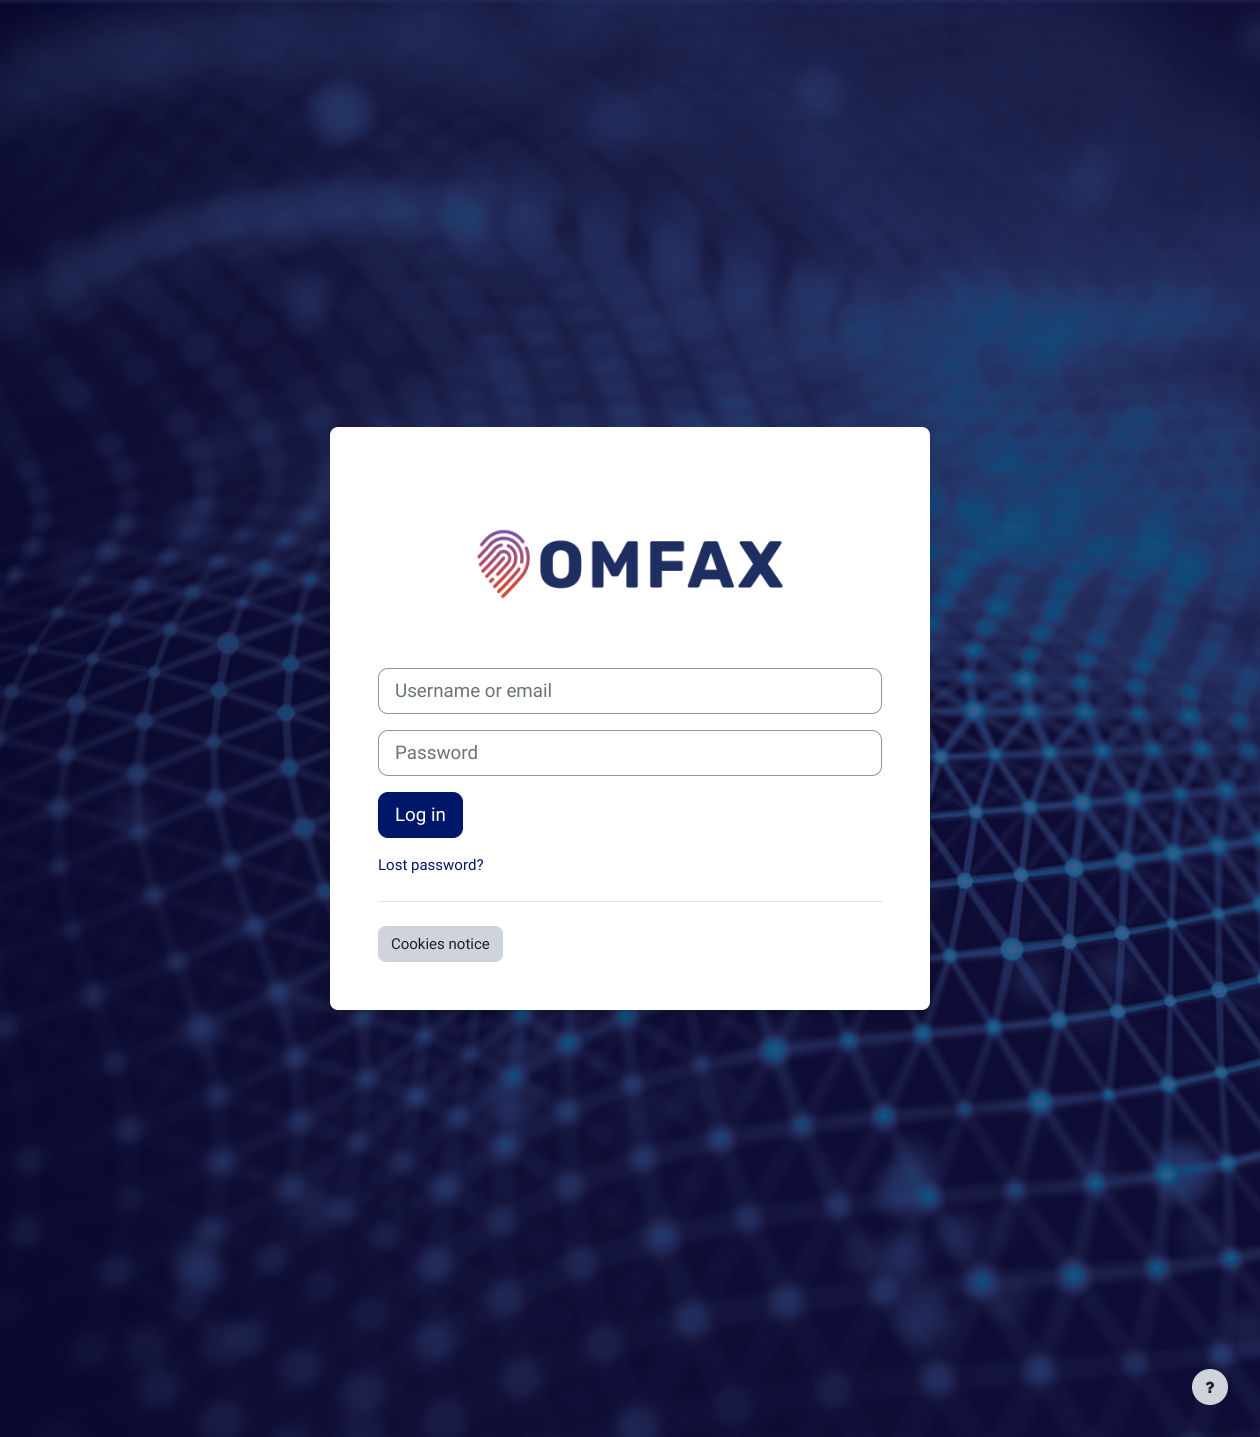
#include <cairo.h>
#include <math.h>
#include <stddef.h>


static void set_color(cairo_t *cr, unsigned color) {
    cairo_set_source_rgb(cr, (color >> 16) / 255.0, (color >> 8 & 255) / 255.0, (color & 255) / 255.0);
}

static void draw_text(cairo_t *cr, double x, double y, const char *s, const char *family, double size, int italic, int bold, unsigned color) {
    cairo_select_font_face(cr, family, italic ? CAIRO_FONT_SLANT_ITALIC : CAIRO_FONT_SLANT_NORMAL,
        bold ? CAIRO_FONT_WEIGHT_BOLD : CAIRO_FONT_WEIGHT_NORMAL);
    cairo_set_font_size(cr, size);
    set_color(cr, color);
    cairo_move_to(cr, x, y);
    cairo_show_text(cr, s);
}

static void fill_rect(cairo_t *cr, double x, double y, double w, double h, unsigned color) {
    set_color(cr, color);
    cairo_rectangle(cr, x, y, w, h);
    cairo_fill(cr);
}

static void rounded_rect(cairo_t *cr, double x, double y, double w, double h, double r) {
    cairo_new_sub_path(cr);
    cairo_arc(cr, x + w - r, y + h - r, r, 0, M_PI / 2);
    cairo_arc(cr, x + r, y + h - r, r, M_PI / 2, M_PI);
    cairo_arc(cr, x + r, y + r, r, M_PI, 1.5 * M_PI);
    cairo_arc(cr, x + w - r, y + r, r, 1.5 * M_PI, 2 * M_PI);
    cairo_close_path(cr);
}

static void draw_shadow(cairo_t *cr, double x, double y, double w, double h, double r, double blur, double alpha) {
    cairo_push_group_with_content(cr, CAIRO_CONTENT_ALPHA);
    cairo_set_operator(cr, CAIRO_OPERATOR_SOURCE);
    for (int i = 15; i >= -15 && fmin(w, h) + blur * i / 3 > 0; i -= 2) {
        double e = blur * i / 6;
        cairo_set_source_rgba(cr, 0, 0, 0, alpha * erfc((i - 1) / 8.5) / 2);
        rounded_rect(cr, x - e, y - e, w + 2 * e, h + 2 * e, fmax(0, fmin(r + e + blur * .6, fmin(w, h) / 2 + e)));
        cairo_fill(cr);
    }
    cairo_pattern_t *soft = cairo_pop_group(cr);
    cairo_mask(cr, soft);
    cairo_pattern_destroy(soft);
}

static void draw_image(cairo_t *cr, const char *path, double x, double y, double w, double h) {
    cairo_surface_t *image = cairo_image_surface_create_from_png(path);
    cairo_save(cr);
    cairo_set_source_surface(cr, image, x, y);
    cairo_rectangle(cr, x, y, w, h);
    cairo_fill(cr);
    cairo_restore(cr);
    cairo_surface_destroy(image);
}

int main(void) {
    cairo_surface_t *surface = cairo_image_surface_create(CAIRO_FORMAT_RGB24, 1260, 1437);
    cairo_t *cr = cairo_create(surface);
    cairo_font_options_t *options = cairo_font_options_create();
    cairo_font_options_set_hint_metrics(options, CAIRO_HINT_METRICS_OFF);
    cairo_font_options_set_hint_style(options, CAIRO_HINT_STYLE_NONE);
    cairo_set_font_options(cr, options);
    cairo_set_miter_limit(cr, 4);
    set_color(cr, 0xFFFFFF);
    cairo_paint(cr);
    draw_image(cr, "assets/img1.png", 0, 0, 1260, 1437);
    draw_image(cr, "assets/img2.png", 0, 0, 1260, 1437);
    set_color(cr, 0x000000);
    draw_shadow(cr, 330, 435, 600, 583, 8, 8, 0.15);
    set_color(cr, 0xFFFFFF);
    rounded_rect(cr, 330, 427, 600, 583, 8);
    cairo_fill(cr);
    draw_image(cr, "assets/img3.png", 477, 529, 307, 70);
    rounded_rect(cr, 378.5, 668.5, 503, 45, 9.5);
    set_color(cr, 0x8F959E);
    cairo_set_line_width(cr, 1);
    cairo_stroke(cr);
    draw_text(cr, 395, 697, "Username or email", "Roboto", 18.75, 0, 0, 0x6A737B);
    rounded_rect(cr, 378.5, 730.5, 503, 45, 9.5);
    set_color(cr, 0x8F959E);
    cairo_stroke(cr);
    draw_text(cr, 395, 759, "Password", "Roboto", 18.75, 0, 0, 0x6A737B);
    set_color(cr, 0x001769);
    rounded_rect(cr, 378.5, 792.5, 84, 45, 9.5);
    cairo_fill_preserve(cr);
    cairo_stroke(cr);
    draw_text(cr, 395, 821, "Log in", "Roboto", 18.75, 0, 0, 0xFFFFFF);
    draw_text(cr, 378, 870, "Lost password?", "Roboto", 15, 0, 0, 0x001769);
    fill_rect(cr, 378, 901, 504, 1, 0xDEE2E6);
    set_color(cr, 0xCED4DA);
    rounded_rect(cr, 378.5, 926.5, 124, 35, 7.5);
    cairo_fill_preserve(cr);
    cairo_stroke(cr);
    draw_text(cr, 391, 949, "Cookies notice", "Roboto", 15, 0, 0, 0x1D2125);
    set_color(cr, 0xCED4DA);
    cairo_new_path(cr);
    cairo_arc(cr, 1210, 1387, 18, 0, 2 * M_PI);
    cairo_fill(cr);
    draw_image(cr, "assets/img4.png", 1205, 1381, 10, 12);
    cairo_surface_write_to_png(surface, "output.png");
    cairo_font_options_destroy(options);
    cairo_destroy(cr);
    cairo_surface_destroy(surface);
    return 0;
}
